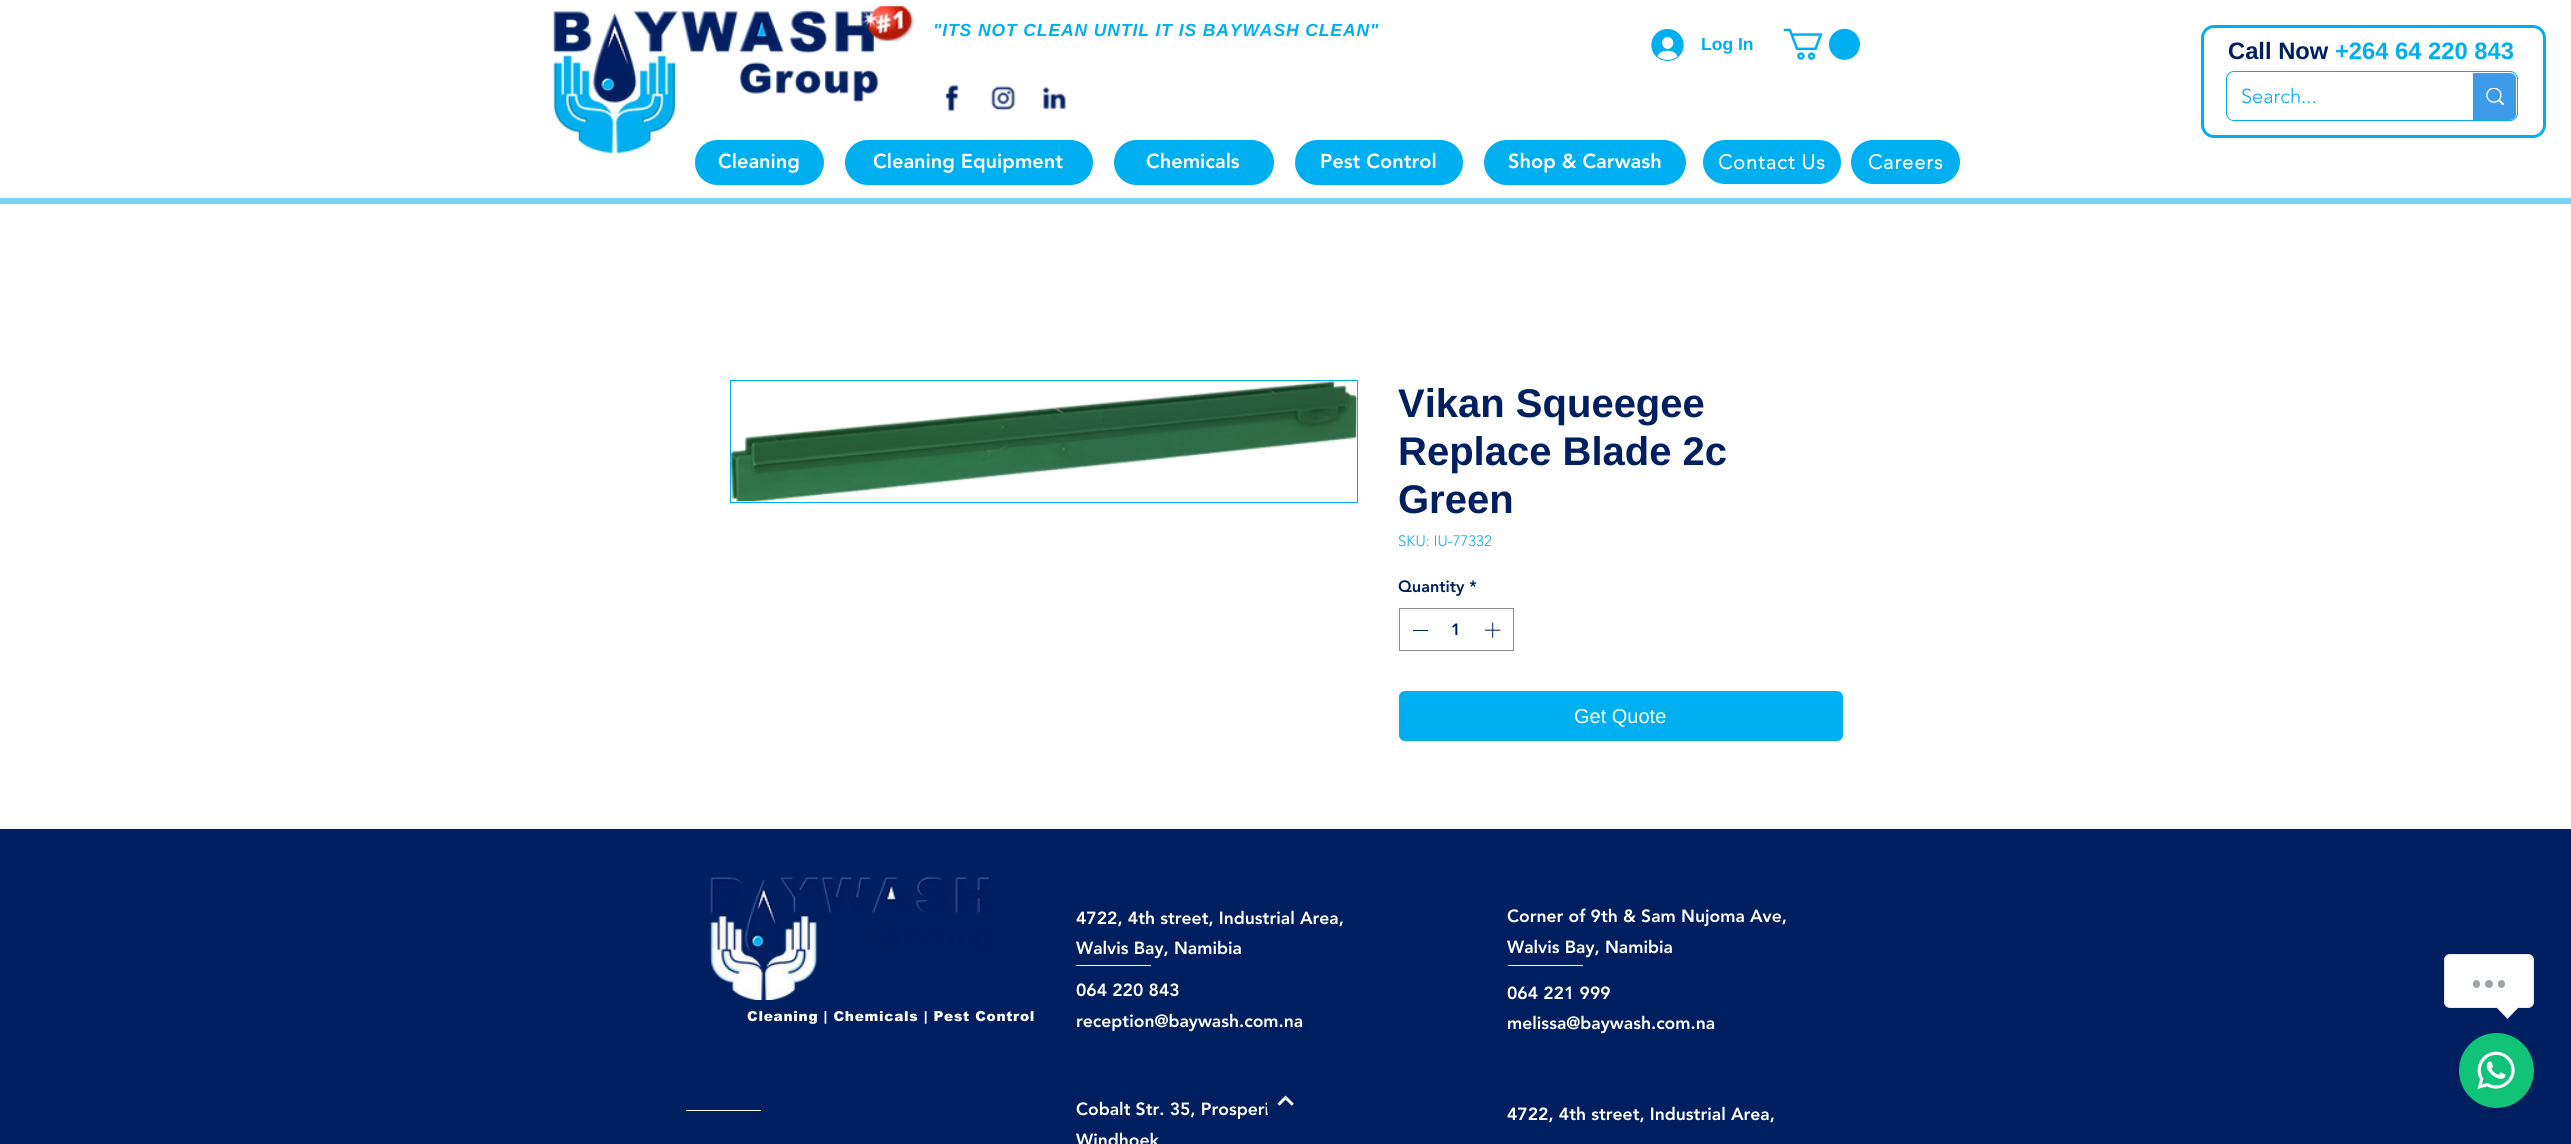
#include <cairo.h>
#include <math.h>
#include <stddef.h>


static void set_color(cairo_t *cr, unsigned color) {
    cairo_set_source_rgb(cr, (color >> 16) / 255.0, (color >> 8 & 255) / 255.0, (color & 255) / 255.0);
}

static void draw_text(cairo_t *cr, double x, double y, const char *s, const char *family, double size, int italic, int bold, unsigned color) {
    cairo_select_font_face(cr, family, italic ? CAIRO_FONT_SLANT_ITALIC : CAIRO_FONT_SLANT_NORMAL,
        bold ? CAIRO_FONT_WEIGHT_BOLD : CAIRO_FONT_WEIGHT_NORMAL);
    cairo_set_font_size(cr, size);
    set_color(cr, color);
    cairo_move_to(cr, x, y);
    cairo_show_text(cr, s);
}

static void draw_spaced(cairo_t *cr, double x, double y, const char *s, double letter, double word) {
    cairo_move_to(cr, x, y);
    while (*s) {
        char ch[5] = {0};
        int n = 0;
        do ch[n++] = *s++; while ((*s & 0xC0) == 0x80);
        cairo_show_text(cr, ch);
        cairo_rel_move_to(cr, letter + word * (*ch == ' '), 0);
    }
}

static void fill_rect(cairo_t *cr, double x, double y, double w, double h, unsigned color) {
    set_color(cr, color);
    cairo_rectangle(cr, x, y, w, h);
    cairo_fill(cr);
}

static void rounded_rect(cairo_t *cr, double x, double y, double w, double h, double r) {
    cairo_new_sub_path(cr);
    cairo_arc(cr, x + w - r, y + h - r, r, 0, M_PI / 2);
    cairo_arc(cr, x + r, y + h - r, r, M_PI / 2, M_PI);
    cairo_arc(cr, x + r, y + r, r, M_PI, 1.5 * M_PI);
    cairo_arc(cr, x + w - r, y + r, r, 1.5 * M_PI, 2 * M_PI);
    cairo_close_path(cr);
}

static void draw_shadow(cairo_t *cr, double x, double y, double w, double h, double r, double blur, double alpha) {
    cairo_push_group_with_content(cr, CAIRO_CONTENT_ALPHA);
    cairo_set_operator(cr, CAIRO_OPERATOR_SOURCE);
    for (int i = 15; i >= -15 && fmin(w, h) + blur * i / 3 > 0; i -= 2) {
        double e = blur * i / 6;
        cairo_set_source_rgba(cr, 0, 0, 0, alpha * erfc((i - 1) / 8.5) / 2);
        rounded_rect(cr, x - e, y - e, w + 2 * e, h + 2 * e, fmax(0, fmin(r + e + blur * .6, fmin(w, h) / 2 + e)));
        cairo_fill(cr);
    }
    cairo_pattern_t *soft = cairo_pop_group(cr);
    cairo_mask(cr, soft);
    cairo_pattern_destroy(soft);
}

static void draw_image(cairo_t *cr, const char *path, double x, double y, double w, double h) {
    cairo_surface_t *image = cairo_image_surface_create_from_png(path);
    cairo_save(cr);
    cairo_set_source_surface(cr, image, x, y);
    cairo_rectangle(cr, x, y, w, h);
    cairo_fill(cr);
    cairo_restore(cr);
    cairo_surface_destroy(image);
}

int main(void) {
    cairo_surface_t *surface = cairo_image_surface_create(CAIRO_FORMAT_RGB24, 2571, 1144);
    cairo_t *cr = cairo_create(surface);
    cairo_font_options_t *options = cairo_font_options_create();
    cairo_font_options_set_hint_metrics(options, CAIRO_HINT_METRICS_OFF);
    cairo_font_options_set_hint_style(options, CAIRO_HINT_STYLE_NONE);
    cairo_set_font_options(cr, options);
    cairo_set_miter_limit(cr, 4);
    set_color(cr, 0xFFFFFF);
    cairo_paint(cr);
    draw_image(cr, "assets/img1.png", 553, 10, 326, 144);
    draw_image(cr, "assets/img2.png", 862, 6, 53, 36);
    cairo_select_font_face(cr, "Liberation Sans", CAIRO_FONT_SLANT_ITALIC, CAIRO_FONT_WEIGHT_BOLD);
    cairo_set_font_size(cr, 17.5);
    set_color(cr, 0x00AFEF);
    draw_spaced(cr, 933, 36, "\"ITS NOT CLEAN UNTIL IT IS BAYWASH CLEAN\"", 0.9, 0);
    draw_image(cr, "assets/img3.png", 1651, 29, 33, 32);
    draw_text(cr, 1701, 50, "Log In", "Liberation Sans", 17.5, 0, 1, 0x00AFEF);
    draw_image(cr, "assets/img4.png", 1783, 28, 77, 32);
    draw_image(cr, "assets/img5.png", 945, 84, 14, 28);
    draw_image(cr, "assets/img6.png", 990, 85, 26, 26);
    draw_image(cr, "assets/img7.png", 1042, 86, 25, 24);
    rounded_rect(cr, 695, 140, 129, 45, 22.5);
    cairo_fill(cr);
    draw_text(cr, 718, 168, "Cleaning", "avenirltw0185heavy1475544 Black", 20, 0, 0, 0xFFFFFF);
    set_color(cr, 0x00AFEF);
    rounded_rect(cr, 845, 140, 248, 45, 22.5);
    cairo_fill(cr);
    draw_text(cr, 873, 168, "Cleaning Equipment", "avenirltw0185heavy1475544 Black", 20, 0, 0, 0xFFFFFF);
    set_color(cr, 0x00AFEF);
    rounded_rect(cr, 1114, 140, 160, 45, 22.5);
    cairo_fill(cr);
    draw_text(cr, 1146, 168, "Chemicals", "avenirltw0185heavy1475544 Black", 20, 0, 0, 0xFFFFFF);
    set_color(cr, 0x00AFEF);
    rounded_rect(cr, 1295, 140, 168, 45, 22.5);
    cairo_fill(cr);
    draw_text(cr, 1320, 168, "Pest Control", "avenirltw0185heavy1475544 Black", 20, 0, 0, 0xFFFFFF);
    set_color(cr, 0x00AFEF);
    rounded_rect(cr, 1484, 140, 202, 45, 22.5);
    cairo_fill(cr);
    draw_text(cr, 1508, 168, "Shop & Carwash", "avenirltw0185heavy1475544 Black", 20, 0, 0, 0xFFFFFF);
    set_color(cr, 0x00AFEF);
    rounded_rect(cr, 1703, 140, 138, 44, 22);
    cairo_fill(cr);
    cairo_select_font_face(cr, "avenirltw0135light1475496", CAIRO_FONT_SLANT_NORMAL, CAIRO_FONT_WEIGHT_BOLD);
    set_color(cr, 0xFFFFFF);
    draw_spaced(cr, 1718, 169, "Contact Us", 1, 0);
    set_color(cr, 0x00AFEF);
    rounded_rect(cr, 1851, 140, 109, 44, 22);
    cairo_fill(cr);
    set_color(cr, 0xFFFFFF);
    draw_spaced(cr, 1868, 169, "Careers", 1, 0);
    fill_rect(cr, 0, 198, 2571, 6, 0x7AD4F4);
    rounded_rect(cr, 2202.5, 26.5, 342, 110, 11.5);
    set_color(cr, 0x00AFEF);
    cairo_set_line_width(cr, 3);
    cairo_stroke(cr);
    draw_text(cr, 2228, 59, "Call Now", "Liberation Sans", 23.75, 0, 1, 0x001F61);
    draw_text(cr, 2335, 59, "+264 64 220 843", "Liberation Sans", 23.75, 0, 1, 0x00AFEF);
    rounded_rect(cr, 2226.5, 71.5, 291, 49, 7.5);
    cairo_set_line_width(cr, 1);
    cairo_stroke(cr);
    set_color(cr, 0xFFFFFF);
    rounded_rect(cr, 2228, 73, 288, 47, 6);
    cairo_fill(cr);
    draw_text(cr, 2241, 103, "Search...", "avenirltw0135light1475496 Light", 20, 0, 0, 0x00A6FF);
    set_color(cr, 0x3D9BE9);
    cairo_new_path(cr);
    cairo_move_to(cr, 2473, 73);
    cairo_line_to(cr, 2510, 73);
    cairo_curve_to(cr, 2513.5, 73, 2516, 75.5, 2516, 79);
    cairo_line_to(cr, 2516, 114);
    cairo_curve_to(cr, 2516, 117.5, 2513.5, 120, 2510, 120);
    cairo_line_to(cr, 2473, 120);
    cairo_close_path(cr);
    cairo_fill(cr);
    fill_rect(cr, 2473, 73, 1, 47, 0x00AFEF);
    draw_image(cr, "assets/img8.png", 2486, 88, 18, 17);
    cairo_rectangle(cr, 730.5, 380.5, 627, 122);
    cairo_stroke(cr);
    draw_image(cr, "assets/img9.png", 731, 381, 626, 121);
    draw_text(cr, 1398, 417, "Vikan Squeegee", "Liberation Sans", 40, 0, 1, 0x001F61);
    draw_text(cr, 1398, 465, "Replace Blade 2c", "Liberation Sans", 40, 0, 1, 0x001F61);
    draw_text(cr, 1398, 513, "Green", "Liberation Sans", 40, 0, 1, 0x001F61);
    draw_text(cr, 1398, 546, "SKU: IU-77332", "avenirltw0135light1475496 Light", 15, 0, 0, 0x00AFEF);
    draw_text(cr, 1398, 592, "Quantity *", "avenirltw0185heavy1475544 Black", 16.25, 0, 0, 0x001F61);
    cairo_rectangle(cr, 1399.5, 608.5, 114, 42);
    set_color(cr, 0x8D8D8D);
    cairo_stroke(cr);
    fill_rect(cr, 1413, 630, 15, 1, 0x001F61);
    draw_text(cr, 1451, 635, "1", "avenirltw0185heavy1475544 Black", 16.25, 0, 0, 0x001F61);
    draw_image(cr, "assets/img10.png", 1485, 622, 16, 16);
    set_color(cr, 0x00AFEF);
    rounded_rect(cr, 1399, 691, 444, 50, 6);
    cairo_fill(cr);
    draw_text(cr, 1574, 723, "Get Quote", "Liberation Sans", 20, 0, 0, 0xFFFFFF);
    fill_rect(cr, 0, 829, 2571, 315, 0x001F61);
    draw_image(cr, "assets/img11.png", 710, 876, 280, 124);
    draw_text(cr, 1076, 924, "4722, 4th street, Industrial Area,", "avenirltw0185heavy1475544 Black", 17.5, 0, 0, 0xFFFFFF);
    draw_text(cr, 1076, 954, "Walvis Bay, Namibia", "avenirltw0185heavy1475544 Black", 17.5, 0, 0, 0xFFFFFF);
    draw_text(cr, 1507, 922, "Corner of 9th & Sam Nujoma Ave,", "avenirltw0185heavy1475544 Black", 17.5, 0, 0, 0xFFFFFF);
    draw_text(cr, 1507, 953, "Walvis Bay, Namibia", "avenirltw0185heavy1475544 Black", 17.5, 0, 0, 0xFFFFFF);
    fill_rect(cr, 1076, 965, 75, 1, 0xFFFFFF);
    fill_rect(cr, 1508, 965, 75, 1, 0xFFFFFF);
    cairo_select_font_face(cr, "arial Black", CAIRO_FONT_SLANT_NORMAL, CAIRO_FONT_WEIGHT_NORMAL);
    cairo_set_font_size(cr, 13.75);
    draw_spaced(cr, 747, 1021, "Cleaning | Chemicals | Pest Control", 0.7, 0);
    draw_text(cr, 1076, 996, "064 220 843", "avenirltw0185heavy1475544 Black", 17.5, 0, 0, 0xFFFFFF);
    draw_text(cr, 1076, 1027, "reception@baywash.com.na", "avenirltw0185heavy1475544 Black", 17.5, 0, 0, 0xFFFFFF);
    draw_text(cr, 1507, 999, "064 221 999", "avenirltw0185heavy1475544 Black", 17.5, 0, 0, 0xFFFFFF);
    draw_text(cr, 1507, 1029, "melissa@baywash.com.na", "avenirltw0185heavy1475544 Black", 17.5, 0, 0, 0xFFFFFF);
    fill_rect(cr, 686, 1110, 75, 1, 0xFFFFFF);
    draw_text(cr, 1076, 1115, "Cobalt Str. 35, Prosperi", "avenirltw0185heavy1475544 Black", 17.5, 0, 0, 0xFFFFFF);
    draw_text(cr, 1076, 1146, "Windhoek", "avenirltw0185heavy1475544 Black", 17.5, 0, 0, 0xFFFFFF);
    draw_text(cr, 1507, 1120, "4722, 4th street, Industrial Area,", "avenirltw0185heavy1475544 Black", 17.5, 0, 0, 0xFFFFFF);
    set_color(cr, 0x001F61);
    cairo_new_path(cr);
    cairo_move_to(cr, 1267, 1110);
    cairo_line_to(cr, 1267, 1092.5);
    cairo_curve_to(cr, 1267, 1087, 1271.5, 1082.5, 1277, 1082.5);
    cairo_line_to(cr, 1294.5, 1082.5);
    cairo_curve_to(cr, 1300, 1082.5, 1304.5, 1087, 1304.5, 1092.5);
    cairo_line_to(cr, 1304.5, 1110);
    cairo_curve_to(cr, 1304.5, 1115.5, 1300, 1120, 1294.5, 1120);
    cairo_line_to(cr, 1277, 1120);
    cairo_curve_to(cr, 1271.5, 1120, 1267, 1115.5, 1267, 1110);
    cairo_close_path(cr);
    cairo_fill(cr);
    draw_image(cr, "assets/img12.png", 1277, 1095, 17, 11);
    set_color(cr, 0xFFFFFF);
    rounded_rect(cr, 2444.5, 954.5, 89, 53, 5.5);
    cairo_fill_preserve(cr);
    set_color(cr, 0xE9E9E9);
    cairo_stroke(cr);
    set_color(cr, 0x9FA4A8);
    rounded_rect(cr, 2473, 980, 7, 8, 3.5);
    cairo_fill(cr);
    cairo_arc(cr, 2489, 984, 4, 0, 2 * M_PI);
    cairo_fill(cr);
    rounded_rect(cr, 2498, 980, 7, 8, 3.5);
    cairo_fill(cr);
    set_color(cr, 0xE9E9E9);
    cairo_new_path(cr);
    cairo_move_to(cr, 2495, 1006);
    cairo_line_to(cr, 2520, 1006);
    cairo_line_to(cr, 2507.5, 1019);
    cairo_close_path(cr);
    cairo_fill(cr);
    set_color(cr, 0xFFFFFF);
    cairo_new_path(cr);
    cairo_move_to(cr, 2496, 1006);
    cairo_line_to(cr, 2519, 1006);
    cairo_line_to(cr, 2507.5, 1017.5);
    cairo_close_path(cr);
    cairo_fill(cr);
    set_color(cr, 0x000000);
    draw_shadow(cr, 2459, 1034, 75, 75, 37.5, 1, 0.15);
    set_color(cr, 0x10C379);
    cairo_arc(cr, 2496.5, 1070.5, 37.5, 0, 2 * M_PI);
    cairo_fill(cr);
    draw_image(cr, "assets/img13.png", 2477, 1051, 38, 38);
    cairo_surface_write_to_png(surface, "output.png");
    cairo_font_options_destroy(options);
    cairo_destroy(cr);
    cairo_surface_destroy(surface);
    return 0;
}
